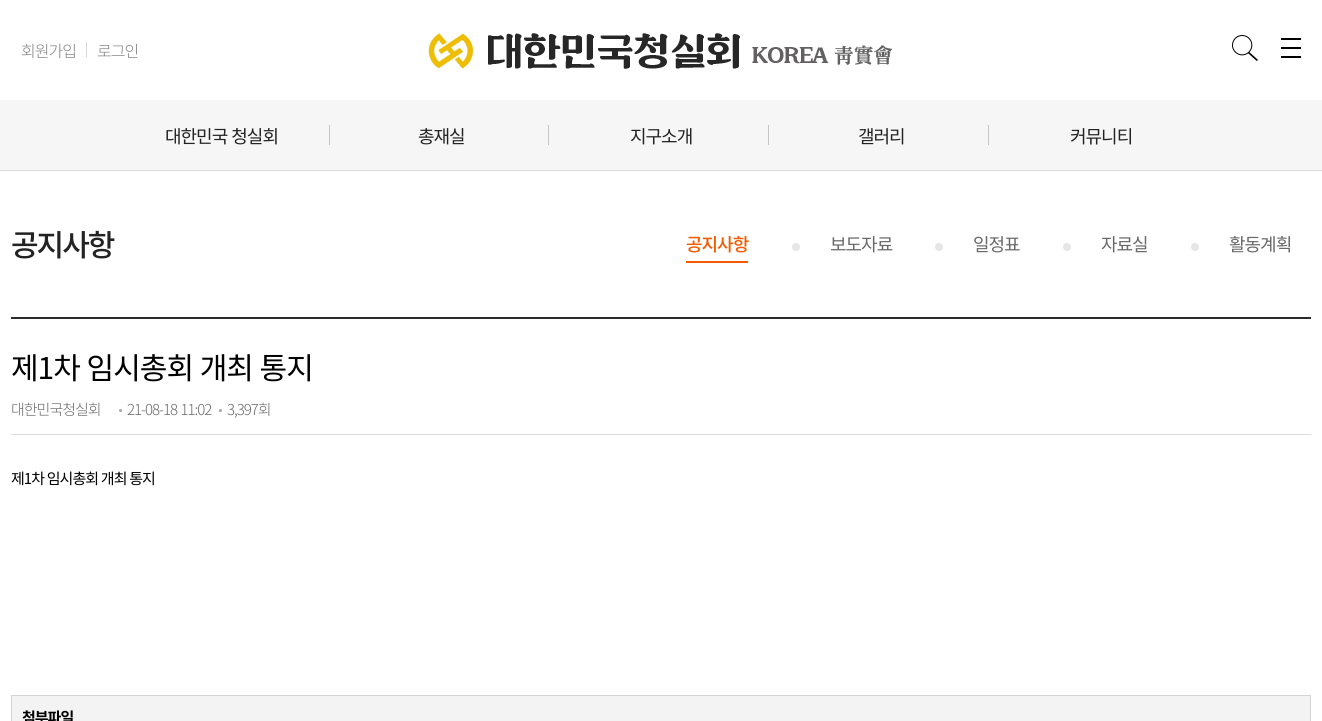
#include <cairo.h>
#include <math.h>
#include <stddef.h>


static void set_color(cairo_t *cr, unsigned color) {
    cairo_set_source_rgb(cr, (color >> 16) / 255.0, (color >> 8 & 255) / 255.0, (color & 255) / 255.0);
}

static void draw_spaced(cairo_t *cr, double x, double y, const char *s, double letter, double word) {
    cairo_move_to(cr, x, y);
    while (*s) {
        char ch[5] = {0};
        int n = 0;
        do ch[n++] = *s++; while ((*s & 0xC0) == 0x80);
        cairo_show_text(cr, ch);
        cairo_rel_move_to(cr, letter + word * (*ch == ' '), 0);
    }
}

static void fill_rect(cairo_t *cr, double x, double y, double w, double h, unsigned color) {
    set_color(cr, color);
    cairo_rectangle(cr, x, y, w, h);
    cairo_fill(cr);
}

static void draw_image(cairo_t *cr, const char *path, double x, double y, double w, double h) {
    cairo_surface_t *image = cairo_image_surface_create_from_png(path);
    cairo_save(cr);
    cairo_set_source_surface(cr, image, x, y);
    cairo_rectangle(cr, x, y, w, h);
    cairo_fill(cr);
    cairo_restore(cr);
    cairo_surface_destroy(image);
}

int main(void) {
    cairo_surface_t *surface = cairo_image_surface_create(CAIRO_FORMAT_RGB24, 1322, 721);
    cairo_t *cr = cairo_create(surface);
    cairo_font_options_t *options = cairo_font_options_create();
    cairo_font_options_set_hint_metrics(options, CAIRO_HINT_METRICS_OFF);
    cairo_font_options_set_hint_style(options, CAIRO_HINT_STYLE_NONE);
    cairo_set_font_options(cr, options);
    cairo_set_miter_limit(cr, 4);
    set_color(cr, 0xFFFFFF);
    cairo_paint(cr);
    fill_rect(cr, 0, 170, 1322, 1, 0xDBDBDB);
    cairo_select_font_face(cr, "Noto Sans KR Light", CAIRO_FONT_SLANT_NORMAL, CAIRO_FONT_WEIGHT_NORMAL);
    cairo_set_font_size(cr, 16);
    set_color(cr, 0x828282);
    draw_spaced(cr, 21, 57, "회원가입", -1, 0);
    fill_rect(cr, 86, 42, 1, 15, 0xD5D5D5);
    set_color(cr, 0x828282);
    draw_spaced(cr, 97, 57, "로그인", -1, 0);
    draw_image(cr, "assets/img1.png", 428, 33, 464, 36);
    draw_image(cr, "assets/img2.png", 1232, 35, 26, 26);
    draw_image(cr, "assets/img3.png", 1281, 38, 20, 20);
    fill_rect(cr, 0, 100, 1322, 70, 0xF6F6F6);
    cairo_select_font_face(cr, "Noto Sans KR", CAIRO_FONT_SLANT_NORMAL, CAIRO_FONT_WEIGHT_NORMAL);
    cairo_set_font_size(cr, 18);
    set_color(cr, 0x232323);
    draw_spaced(cr, 165, 143, "대한민국 청실회", -1, 1);
    fill_rect(cr, 329, 125, 1, 20, 0xC5C5C5);
    set_color(cr, 0x232323);
    draw_spaced(cr, 418, 143, "총재실", -1, 0);
    fill_rect(cr, 548, 125, 1, 20, 0xC5C5C5);
    set_color(cr, 0x232323);
    draw_spaced(cr, 630, 143, "지구소개", -1, 0);
    fill_rect(cr, 768, 125, 1, 20, 0xC5C5C5);
    set_color(cr, 0x232323);
    draw_spaced(cr, 858, 143, "갤러리", -1, 0);
    fill_rect(cr, 988, 125, 1, 20, 0xC5C5C5);
    set_color(cr, 0x232323);
    draw_spaced(cr, 1070, 143, "커뮤니티", -1, 0);
    cairo_select_font_face(cr, "Noto Sans KR Medium", CAIRO_FONT_SLANT_NORMAL, CAIRO_FONT_WEIGHT_NORMAL);
    cairo_set_font_size(cr, 30);
    draw_spaced(cr, 11, 256, "공지사항", -2, 0);
    cairo_set_font_size(cr, 18);
    set_color(cr, 0xF35B00);
    draw_spaced(cr, 686, 251, "공지사항", -1, 0);
    fill_rect(cr, 686, 261, 62, 2, 0xF35B00);
    set_color(cr, 0xE6E6E6);
    cairo_new_path(cr);
    cairo_arc(cr, 796, 247, 4, 0, 2 * M_PI);
    cairo_fill(cr);
    cairo_select_font_face(cr, "Noto Sans KR", CAIRO_FONT_SLANT_NORMAL, CAIRO_FONT_WEIGHT_NORMAL);
    set_color(cr, 0x696969);
    draw_spaced(cr, 830, 251, "보도자료", -1, 0);
    set_color(cr, 0xE6E6E6);
    cairo_new_path(cr);
    cairo_arc(cr, 939, 247, 4, 0, 2 * M_PI);
    cairo_fill(cr);
    set_color(cr, 0x696969);
    draw_spaced(cr, 973, 251, "일정표", -1, 0);
    set_color(cr, 0xE6E6E6);
    cairo_new_path(cr);
    cairo_arc(cr, 1067, 247, 4, 0, 2 * M_PI);
    cairo_fill(cr);
    set_color(cr, 0x696969);
    draw_spaced(cr, 1101, 251, "자료실", -1, 0);
    set_color(cr, 0xE6E6E6);
    cairo_new_path(cr);
    cairo_arc(cr, 1195, 247, 4, 0, 2 * M_PI);
    cairo_fill(cr);
    set_color(cr, 0x696969);
    draw_spaced(cr, 1229, 251, "활동계획", -1, 0);
    fill_rect(cr, 11, 317, 1300, 2, 0x2B2B2B);
    cairo_set_font_size(cr, 30);
    set_color(cr, 0x000000);
    draw_spaced(cr, 11, 379, "제1차 임시총회 개최 통지", -1, 1);
    fill_rect(cr, 11, 434, 1300, 1, 0xDDDDDD);
    cairo_select_font_face(cr, "Noto Sans KR Light", CAIRO_FONT_SLANT_NORMAL, CAIRO_FONT_WEIGHT_NORMAL);
    cairo_set_font_size(cr, 15);
    set_color(cr, 0x696969);
    draw_spaced(cr, 11, 415, "대한민국청실회", -1, 0);
    set_color(cr, 0xA6A6A6);
    cairo_new_path(cr);
    cairo_arc(cr, 120.5, 410.5, 1.5, 0, 2 * M_PI);
    cairo_fill(cr);
    set_color(cr, 0x696969);
    draw_spaced(cr, 127, 415, "21-08-18 11:02", -1, 1);
    set_color(cr, 0xA6A6A6);
    cairo_new_path(cr);
    cairo_arc(cr, 220.5, 410.5, 1.5, 0, 2 * M_PI);
    cairo_fill(cr);
    set_color(cr, 0x696969);
    draw_spaced(cr, 227, 415, "3,397회", -1, 0);
    cairo_select_font_face(cr, "Noto Sans KR", CAIRO_FONT_SLANT_NORMAL, CAIRO_FONT_WEIGHT_NORMAL);
    set_color(cr, 0x000000);
    draw_spaced(cr, 11, 484, "제1차 임시총회 개최 통지", -1, 0.5);
    cairo_rectangle(cr, 11.5, 695.5, 1299, 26);
    set_color(cr, 0xD4D4D4);
    cairo_set_line_width(cr, 1);
    cairo_stroke(cr);
    fill_rect(cr, 12, 696, 1298, 25, 0xF3F3F3);
    cairo_select_font_face(cr, "Noto Sans KR", CAIRO_FONT_SLANT_NORMAL, CAIRO_FONT_WEIGHT_BOLD);
    set_color(cr, 0x000000);
    draw_spaced(cr, 22, 723, "첨부파일", -1, 0);
    cairo_surface_write_to_png(surface, "output.png");
    cairo_font_options_destroy(options);
    cairo_destroy(cr);
    cairo_surface_destroy(surface);
    return 0;
}
